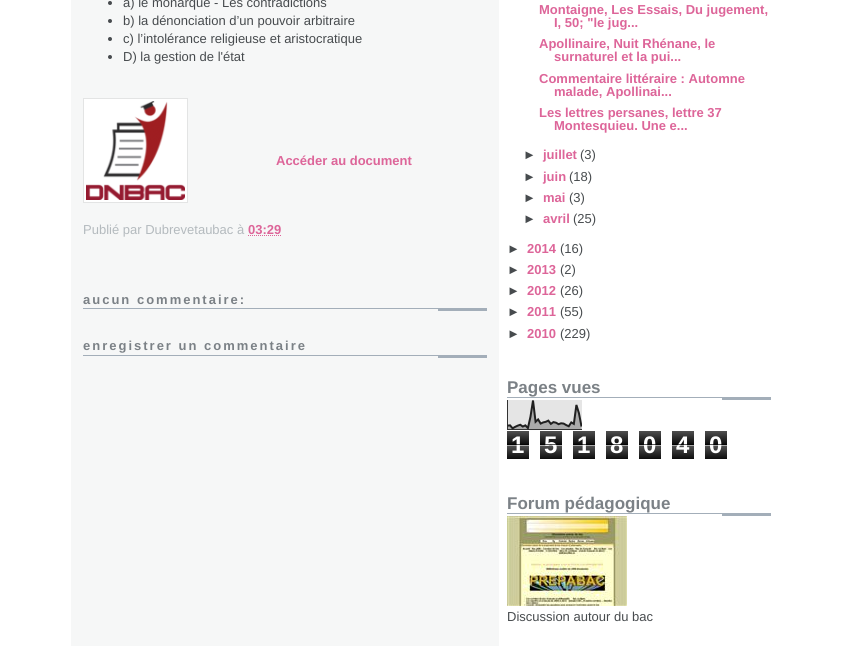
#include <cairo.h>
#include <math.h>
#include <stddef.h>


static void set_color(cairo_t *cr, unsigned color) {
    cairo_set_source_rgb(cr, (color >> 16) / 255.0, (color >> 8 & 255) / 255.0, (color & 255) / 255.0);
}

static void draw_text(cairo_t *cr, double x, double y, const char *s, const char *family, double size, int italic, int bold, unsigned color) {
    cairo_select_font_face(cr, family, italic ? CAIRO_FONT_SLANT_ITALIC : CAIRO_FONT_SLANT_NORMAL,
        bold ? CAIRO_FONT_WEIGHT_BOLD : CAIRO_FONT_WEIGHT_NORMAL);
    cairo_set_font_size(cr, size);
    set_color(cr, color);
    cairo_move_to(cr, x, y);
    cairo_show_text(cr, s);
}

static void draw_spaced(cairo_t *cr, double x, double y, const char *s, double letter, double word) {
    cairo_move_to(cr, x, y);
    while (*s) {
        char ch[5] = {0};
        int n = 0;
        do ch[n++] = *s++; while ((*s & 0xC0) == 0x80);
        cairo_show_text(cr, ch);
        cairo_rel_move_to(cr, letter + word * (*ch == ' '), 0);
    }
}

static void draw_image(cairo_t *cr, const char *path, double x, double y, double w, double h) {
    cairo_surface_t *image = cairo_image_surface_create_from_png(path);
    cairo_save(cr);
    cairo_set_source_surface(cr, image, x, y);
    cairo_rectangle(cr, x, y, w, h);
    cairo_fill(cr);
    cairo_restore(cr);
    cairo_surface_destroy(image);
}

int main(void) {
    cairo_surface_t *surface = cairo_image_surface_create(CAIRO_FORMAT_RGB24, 842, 646);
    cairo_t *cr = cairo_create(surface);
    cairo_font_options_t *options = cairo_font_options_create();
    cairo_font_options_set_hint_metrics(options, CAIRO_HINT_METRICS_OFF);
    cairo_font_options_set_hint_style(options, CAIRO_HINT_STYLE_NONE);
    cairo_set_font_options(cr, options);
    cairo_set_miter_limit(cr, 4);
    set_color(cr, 0xFFFFFF);
    cairo_paint(cr);
    draw_image(cr, "assets/img1.png", 71, 0, 429, 646);
    set_color(cr, 0x474B4E);
    cairo_arc(cr, 110, 3, 2, 0, 2 * M_PI);
    cairo_fill(cr);
    draw_text(cr, 123, 7, "a) le monarque - Les contradictions", "Liberation Sans", 13, 0, 0, 0x474B4E);
    cairo_new_path(cr);
    cairo_arc(cr, 110, 21, 2, 0, 2 * M_PI);
    cairo_fill(cr);
    draw_text(cr, 123, 25, "b) la dénonciation d’un pouvoir arbitraire", "Liberation Sans", 13, 0, 0, 0x474B4E);
    cairo_new_path(cr);
    cairo_arc(cr, 110, 39, 2, 0, 2 * M_PI);
    cairo_fill(cr);
    draw_text(cr, 123, 43, "c) l’intolérance religieuse et aristocratique", "Liberation Sans", 13, 0, 0, 0x474B4E);
    cairo_new_path(cr);
    cairo_arc(cr, 110, 57, 2, 0, 2 * M_PI);
    cairo_fill(cr);
    draw_text(cr, 123, 61, "D) la gestion de l'état", "Liberation Sans", 13, 0, 0, 0x474B4E);
    set_color(cr, 0xFFFFFF);
    cairo_rectangle(cr, 83.5, 98.5, 104, 104);
    cairo_fill_preserve(cr);
    set_color(cr, 0xE3E4E4);
    cairo_set_line_width(cr, 1);
    cairo_stroke(cr);
    draw_image(cr, "assets/img2.png", 86, 101, 99, 99);
    draw_text(cr, 276, 165, "Accéder au document", "Liberation Sans", 13, 0, 1, 0xDD6599);
    draw_text(cr, 83, 234, "Publié par Dubrevetaubac", "Liberation Sans", 13, 0, 0, 0xB4BABE);
    draw_text(cr, 237, 234, "à", "Liberation Sans", 13, 0, 0, 0xB4BABE);
    draw_text(cr, 248, 234, "03:29", "Liberation Sans", 13, 0, 1, 0xDD6599);
    cairo_new_path(cr);
    cairo_move_to(cr, 248, 235.5);
    cairo_line_to(cr, 281.5, 235.5);
    cairo_set_dash(cr, (double[]){1, 1}, 2, 0);
    cairo_stroke(cr);
    draw_image(cr, "assets/img3.png", 83, 308, 404, 3);
    set_color(cr, 0x7B8186);
    draw_spaced(cr, 83, 304, "aucun commentaire:", 2, 0);
    draw_image(cr, "assets/img3.png", 83, 355, 404, 3);
    draw_spaced(cr, 83, 350, "enregistrer un commentaire", 2, 0);
    draw_text(cr, 539, 14, "Montaigne, Les Essais, Du jugement,", "Liberation Sans", 13, 0, 1, 0xDD6599);
    draw_text(cr, 554, 27, "I, 50; \"le jug...", "Liberation Sans", 13, 0, 1, 0xDD6599);
    draw_text(cr, 539, 48, "Apollinaire, Nuit Rhénane, le", "Liberation Sans", 13, 0, 1, 0xDD6599);
    draw_text(cr, 554, 61, "surnaturel et la pui...", "Liberation Sans", 13, 0, 1, 0xDD6599);
    draw_text(cr, 539, 83, "Commentaire littéraire : Automne", "Liberation Sans", 13, 0, 1, 0xDD6599);
    draw_text(cr, 554, 96, "malade, Apollinai...", "Liberation Sans", 13, 0, 1, 0xDD6599);
    draw_text(cr, 539, 117, "Les lettres persanes, lettre 37", "Liberation Sans", 13, 0, 1, 0xDD6599);
    draw_text(cr, 554, 130, "Montesquieu. Une e...", "Liberation Sans", 13, 0, 1, 0xDD6599);
    draw_text(cr, 523, 159, "►", "Liberation Sans", 13, 0, 1, 0x474B4E);
    draw_text(cr, 543, 159, "juillet", "Liberation Sans", 13, 0, 1, 0xDD6599);
    draw_text(cr, 580, 159, "(3)", "Liberation Sans", 13, 0, 0, 0x474B4E);
    draw_text(cr, 523, 181, "►", "Liberation Sans", 13, 0, 1, 0x474B4E);
    draw_text(cr, 543, 181, "juin", "Liberation Sans", 13, 0, 1, 0xDD6599);
    draw_text(cr, 569, 181, "(18)", "Liberation Sans", 13, 0, 0, 0x474B4E);
    draw_text(cr, 523, 202, "►", "Liberation Sans", 13, 0, 1, 0x474B4E);
    draw_text(cr, 543, 202, "mai", "Liberation Sans", 13, 0, 1, 0xDD6599);
    draw_text(cr, 569, 202, "(3)", "Liberation Sans", 13, 0, 0, 0x474B4E);
    draw_text(cr, 523, 223, "►", "Liberation Sans", 13, 0, 1, 0x474B4E);
    draw_text(cr, 543, 223, "avril", "Liberation Sans", 13, 0, 1, 0xDD6599);
    draw_text(cr, 573, 223, "(25)", "Liberation Sans", 13, 0, 0, 0x474B4E);
    draw_text(cr, 507, 253, "►", "Liberation Sans", 13, 0, 1, 0x474B4E);
    draw_text(cr, 527, 253, "2014", "Liberation Sans", 13, 0, 1, 0xDD6599);
    draw_text(cr, 560, 253, "(16)", "Liberation Sans", 13, 0, 0, 0x474B4E);
    draw_text(cr, 507, 274, "►", "Liberation Sans", 13, 0, 1, 0x474B4E);
    draw_text(cr, 527, 274, "2013", "Liberation Sans", 13, 0, 1, 0xDD6599);
    draw_text(cr, 560, 274, "(2)", "Liberation Sans", 13, 0, 0, 0x474B4E);
    draw_text(cr, 507, 295, "►", "Liberation Sans", 13, 0, 1, 0x474B4E);
    draw_text(cr, 527, 295, "2012", "Liberation Sans", 13, 0, 1, 0xDD6599);
    draw_text(cr, 560, 295, "(26)", "Liberation Sans", 13, 0, 0, 0x474B4E);
    draw_text(cr, 507, 316, "►", "Liberation Sans", 13, 0, 1, 0x474B4E);
    draw_text(cr, 527, 316, "2011", "Liberation Sans", 13, 0, 1, 0xDD6599);
    draw_text(cr, 560, 316, "(55)", "Liberation Sans", 13, 0, 0, 0x474B4E);
    draw_text(cr, 507, 338, "►", "Liberation Sans", 13, 0, 1, 0x474B4E);
    draw_text(cr, 527, 338, "2010", "Liberation Sans", 13, 0, 1, 0xDD6599);
    draw_text(cr, 560, 338, "(229)", "Liberation Sans", 13, 0, 0, 0x474B4E);
    draw_image(cr, "assets/img4.png", 507, 397, 264, 3);
    draw_text(cr, 507, 393, "Pages vues", "Liberation Sans", 17, 0, 1, 0x7B8186);
    draw_image(cr, "assets/img5.png", 507, 400, 75, 30);
    draw_image(cr, "assets/img6.png", 507, 431, 22, 28);
    draw_text(cr, 511, 453, "1", "Liberation Sans", 24, 0, 1, 0xFFFFFF);
    cairo_set_source_rgba(cr, 0, 0, 0, 0.65);
    cairo_rectangle(cr, 507, 444, 22, 1);
    cairo_fill(cr);
    cairo_set_source_rgba(cr, 1, 1, 1, 0.65);
    cairo_rectangle(cr, 507, 445, 22, 1);
    cairo_fill(cr);
    draw_image(cr, "assets/img6.png", 540, 431, 22, 28);
    draw_text(cr, 544, 453, "5", "Liberation Sans", 24, 0, 1, 0xFFFFFF);
    cairo_set_source_rgba(cr, 0, 0, 0, 0.65);
    cairo_rectangle(cr, 540, 444, 22, 1);
    cairo_fill(cr);
    cairo_set_source_rgba(cr, 1, 1, 1, 0.65);
    cairo_rectangle(cr, 540, 445, 22, 1);
    cairo_fill(cr);
    draw_image(cr, "assets/img6.png", 573, 431, 22, 28);
    draw_text(cr, 577, 453, "1", "Liberation Sans", 24, 0, 1, 0xFFFFFF);
    cairo_set_source_rgba(cr, 0, 0, 0, 0.65);
    cairo_rectangle(cr, 573, 444, 22, 1);
    cairo_fill(cr);
    cairo_set_source_rgba(cr, 1, 1, 1, 0.65);
    cairo_rectangle(cr, 573, 445, 22, 1);
    cairo_fill(cr);
    draw_image(cr, "assets/img6.png", 606, 431, 22, 28);
    draw_text(cr, 610, 453, "8", "Liberation Sans", 24, 0, 1, 0xFFFFFF);
    cairo_set_source_rgba(cr, 0, 0, 0, 0.65);
    cairo_rectangle(cr, 606, 444, 22, 1);
    cairo_fill(cr);
    cairo_set_source_rgba(cr, 1, 1, 1, 0.65);
    cairo_rectangle(cr, 606, 445, 22, 1);
    cairo_fill(cr);
    draw_image(cr, "assets/img6.png", 639, 431, 22, 28);
    draw_text(cr, 643, 453, "0", "Liberation Sans", 24, 0, 1, 0xFFFFFF);
    cairo_set_source_rgba(cr, 0, 0, 0, 0.65);
    cairo_rectangle(cr, 639, 444, 22, 1);
    cairo_fill(cr);
    cairo_set_source_rgba(cr, 1, 1, 1, 0.65);
    cairo_rectangle(cr, 639, 445, 22, 1);
    cairo_fill(cr);
    draw_image(cr, "assets/img6.png", 672, 431, 22, 28);
    draw_text(cr, 676, 453, "4", "Liberation Sans", 24, 0, 1, 0xFFFFFF);
    cairo_set_source_rgba(cr, 0, 0, 0, 0.65);
    cairo_rectangle(cr, 672, 444, 22, 1);
    cairo_fill(cr);
    cairo_set_source_rgba(cr, 1, 1, 1, 0.65);
    cairo_rectangle(cr, 672, 445, 22, 1);
    cairo_fill(cr);
    draw_image(cr, "assets/img6.png", 705, 431, 22, 28);
    draw_text(cr, 709, 453, "0", "Liberation Sans", 24, 0, 1, 0xFFFFFF);
    cairo_set_source_rgba(cr, 0, 0, 0, 0.65);
    cairo_rectangle(cr, 705, 444, 22, 1);
    cairo_fill(cr);
    cairo_set_source_rgba(cr, 1, 1, 1, 0.65);
    cairo_rectangle(cr, 705, 445, 22, 1);
    cairo_fill(cr);
    draw_image(cr, "assets/img4.png", 507, 513, 264, 3);
    draw_text(cr, 507, 509, "Forum pédagogique", "Liberation Sans", 17, 0, 1, 0x7B8186);
    draw_image(cr, "assets/img7.png", 507, 516, 120, 90);
    draw_text(cr, 507, 621, "Discussion autour du bac", "Liberation Sans", 13, 0, 0, 0x474B4E);
    cairo_surface_write_to_png(surface, "output.png");
    cairo_font_options_destroy(options);
    cairo_destroy(cr);
    cairo_surface_destroy(surface);
    return 0;
}
